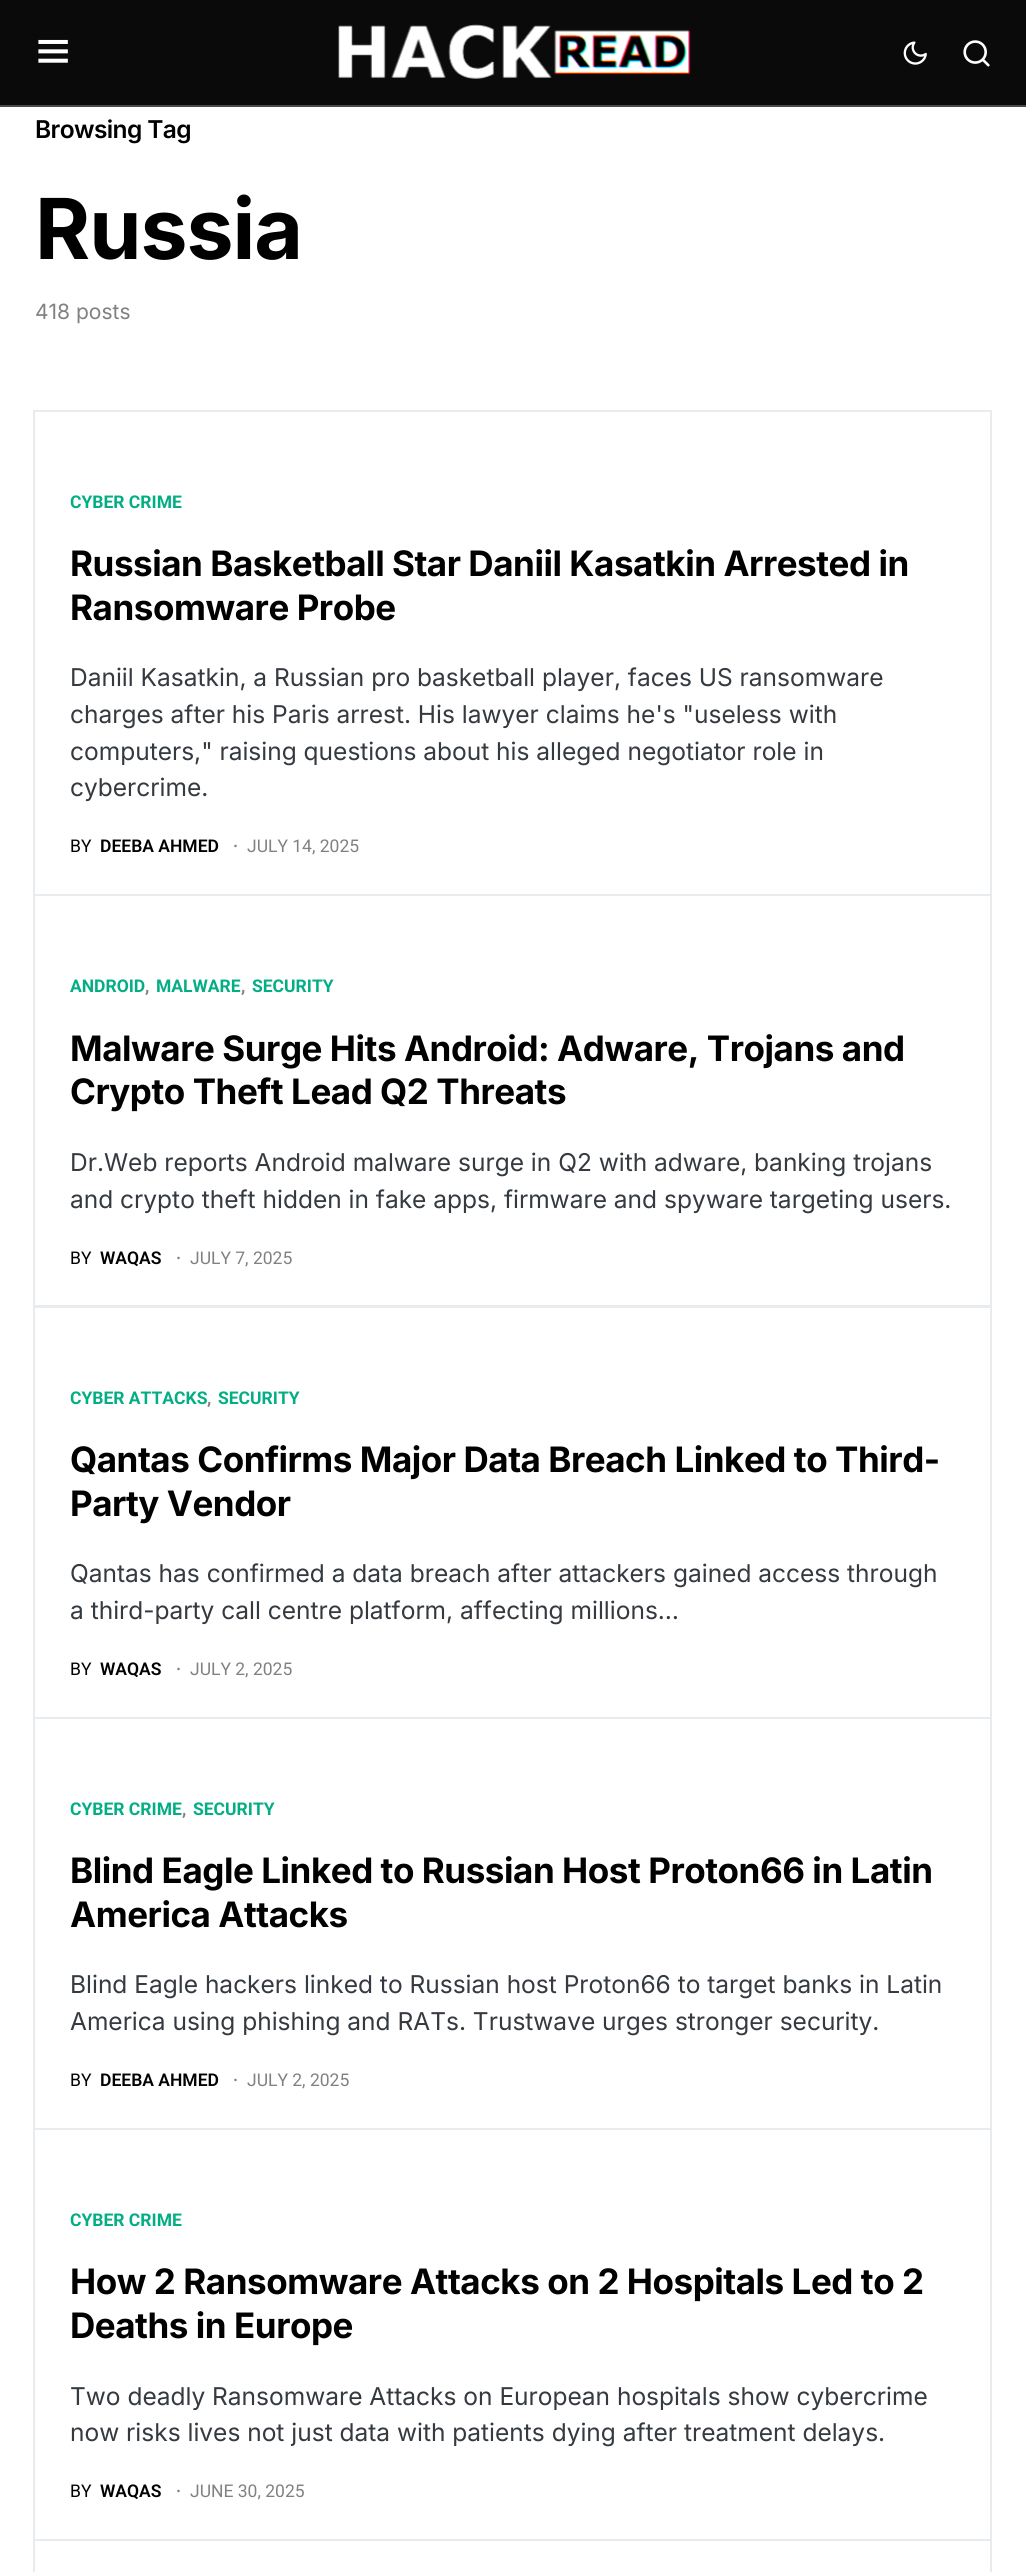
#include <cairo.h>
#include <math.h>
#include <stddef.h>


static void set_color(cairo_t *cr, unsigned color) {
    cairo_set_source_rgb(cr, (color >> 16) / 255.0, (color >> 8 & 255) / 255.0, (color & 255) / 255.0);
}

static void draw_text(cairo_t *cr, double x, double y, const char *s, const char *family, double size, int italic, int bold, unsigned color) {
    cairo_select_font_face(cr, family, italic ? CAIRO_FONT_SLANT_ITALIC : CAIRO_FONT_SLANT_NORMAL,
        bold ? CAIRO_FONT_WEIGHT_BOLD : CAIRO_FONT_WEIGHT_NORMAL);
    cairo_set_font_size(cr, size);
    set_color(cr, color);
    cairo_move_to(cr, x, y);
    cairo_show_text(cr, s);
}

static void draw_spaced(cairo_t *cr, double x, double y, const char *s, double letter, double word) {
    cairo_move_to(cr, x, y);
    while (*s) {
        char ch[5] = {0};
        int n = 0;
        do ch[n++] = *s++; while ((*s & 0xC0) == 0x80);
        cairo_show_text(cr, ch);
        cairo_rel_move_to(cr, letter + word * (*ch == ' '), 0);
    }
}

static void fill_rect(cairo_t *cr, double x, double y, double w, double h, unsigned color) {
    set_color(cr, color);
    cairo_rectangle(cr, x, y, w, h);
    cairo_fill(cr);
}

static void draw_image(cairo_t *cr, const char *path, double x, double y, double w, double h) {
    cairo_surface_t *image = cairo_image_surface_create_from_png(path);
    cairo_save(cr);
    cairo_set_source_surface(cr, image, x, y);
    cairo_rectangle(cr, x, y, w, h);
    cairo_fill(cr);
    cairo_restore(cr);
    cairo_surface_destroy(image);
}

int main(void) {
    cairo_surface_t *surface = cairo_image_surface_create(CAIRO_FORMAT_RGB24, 1026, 2572);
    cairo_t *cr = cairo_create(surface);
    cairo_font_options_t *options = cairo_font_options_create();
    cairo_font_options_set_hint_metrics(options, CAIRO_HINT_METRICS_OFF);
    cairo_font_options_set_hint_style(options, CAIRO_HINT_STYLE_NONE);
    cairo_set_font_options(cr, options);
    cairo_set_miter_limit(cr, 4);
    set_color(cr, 0xFFFFFF);
    cairo_paint(cr);
    fill_rect(cr, 0, 0, 1026, 105, 0x0A0A0A);
    fill_rect(cr, 0, 105, 1026, 2, 0x494949);
    draw_image(cr, "assets/img1.png", 38, 39, 30, 24);
    draw_image(cr, "assets/img2.png", 338, 24, 353, 55);
    draw_image(cr, "assets/img3.png", 903, 41, 24, 24);
    draw_image(cr, "assets/img4.png", 963, 40, 27, 27);
    cairo_select_font_face(cr, "Inter SemiBold", CAIRO_FONT_SLANT_NORMAL, CAIRO_FONT_WEIGHT_NORMAL);
    cairo_set_font_size(cr, 24.5);
    set_color(cr, 0x000000);
    draw_spaced(cr, 35, 138, "Browsing Tag", -0.6, 0);
    cairo_select_font_face(cr, "Inter", CAIRO_FONT_SLANT_NORMAL, CAIRO_FONT_WEIGHT_BOLD);
    cairo_set_font_size(cr, 84);
    draw_spaced(cr, 35, 259, "Russia", -1, 0);
    draw_text(cr, 35, 319, "418 posts", "Inter", 21, 0, 0, 0x818181);
    cairo_rectangle(cr, 34, 411, 957, 484);
    set_color(cr, 0xE9ECEF);
    cairo_stroke(cr);
    draw_text(cr, 70, 508, "CYBER CRIME", "Roboto", 17.5, 0, 1, 0x03AE84);
    cairo_select_font_face(cr, "Inter", CAIRO_FONT_SLANT_NORMAL, CAIRO_FONT_WEIGHT_BOLD);
    cairo_set_font_size(cr, 35);
    set_color(cr, 0x000000);
    draw_spaced(cr, 70, 576, "Russian Basketball Star Daniil Kasatkin Arrested in", -0.45, 0);
    draw_spaced(cr, 70, 620, "Ransomware Probe", -0.45, 0);
    draw_text(cr, 70, 686, "Daniil Kasatkin, a Russian pro basketball player, faces US ransomware", "Inter", 24.5, 0, 0, 0x343A40);
    draw_text(cr, 70, 723, "charges after his Paris arrest. His lawyer claims he's \"useless with", "Inter", 24.5, 0, 0, 0x343A40);
    draw_text(cr, 70, 760, "computers,\" raising questions about his alleged negotiator role in", "Inter", 24.5, 0, 0, 0x343A40);
    draw_text(cr, 70, 796, "cybercrime.", "Inter", 24.5, 0, 0, 0x343A40);
    draw_text(cr, 70, 852, "BY", "Roboto", 17.5, 0, 0, 0x000000);
    draw_text(cr, 100, 852, "DEEBA AHMED", "Roboto SemiBold", 17.5, 0, 0, 0x000000);
    draw_text(cr, 233, 852, "·", "Roboto SemiBold", 17.5, 0, 0, 0x818181);
    draw_text(cr, 247, 852, "JULY 14, 2025", "Roboto", 17.5, 0, 0, 0x818181);
    cairo_rectangle(cr, 34, 895, 957, 411);
    set_color(cr, 0xE9ECEF);
    cairo_stroke(cr);
    draw_text(cr, 70, 992, "ANDROID", "Roboto", 17.5, 0, 1, 0x03AE84);
    draw_text(cr, 145, 992, ",", "Roboto", 17.5, 0, 1, 0x818181);
    draw_text(cr, 156, 992, "MALWARE", "Roboto", 17.5, 0, 1, 0x03AE84);
    draw_text(cr, 241, 992, ",", "Roboto", 17.5, 0, 1, 0x818181);
    draw_text(cr, 252, 992, "SECURITY", "Roboto", 17.5, 0, 1, 0x03AE84);
    cairo_select_font_face(cr, "Inter", CAIRO_FONT_SLANT_NORMAL, CAIRO_FONT_WEIGHT_BOLD);
    cairo_set_font_size(cr, 35);
    set_color(cr, 0x000000);
    draw_spaced(cr, 70, 1061, "Malware Surge Hits Android: Adware, Trojans and", -0.45, 0);
    draw_spaced(cr, 70, 1104, "Crypto Theft Lead Q2 Threats", -0.45, 0);
    draw_text(cr, 70, 1171, "Dr.Web reports Android malware surge in Q2 with adware, banking trojans", "Inter", 24.5, 0, 0, 0x343A40);
    draw_text(cr, 70, 1208, "and crypto theft hidden in fake apps, firmware and spyware targeting users.", "Inter", 24.5, 0, 0, 0x343A40);
    draw_text(cr, 70, 1264, "BY", "Roboto", 17.5, 0, 0, 0x000000);
    draw_text(cr, 100, 1264, "WAQAS", "Roboto SemiBold", 17.5, 0, 0, 0x000000);
    draw_text(cr, 176, 1264, "·", "Roboto SemiBold", 17.5, 0, 0, 0x818181);
    draw_text(cr, 190, 1264, "JULY 7, 2025", "Roboto", 17.5, 0, 0, 0x818181);
    cairo_rectangle(cr, 34, 1307, 957, 411);
    set_color(cr, 0xE9ECEF);
    cairo_stroke(cr);
    draw_text(cr, 70, 1404, "CYBER ATTACKS", "Roboto", 17.5, 0, 1, 0x03AE84);
    draw_text(cr, 207, 1404, ",", "Roboto", 17.5, 0, 1, 0x818181);
    draw_text(cr, 218, 1404, "SECURITY", "Roboto", 17.5, 0, 1, 0x03AE84);
    cairo_select_font_face(cr, "Inter", CAIRO_FONT_SLANT_NORMAL, CAIRO_FONT_WEIGHT_BOLD);
    cairo_set_font_size(cr, 35);
    set_color(cr, 0x000000);
    draw_spaced(cr, 70, 1472, "Qantas Confirms Major Data Breach Linked to Third-", -0.45, 0);
    draw_spaced(cr, 70, 1516, "Party Vendor", -0.45, 0);
    draw_text(cr, 70, 1582, "Qantas has confirmed a data breach after attackers gained access through", "Inter", 24.5, 0, 0, 0x343A40);
    draw_text(cr, 70, 1619, "a third-party call centre platform, affecting millions…", "Inter", 24.5, 0, 0, 0x343A40);
    draw_text(cr, 70, 1675, "BY", "Roboto", 17.5, 0, 0, 0x000000);
    draw_text(cr, 100, 1675, "WAQAS", "Roboto SemiBold", 17.5, 0, 0, 0x000000);
    draw_text(cr, 176, 1675, "·", "Roboto SemiBold", 17.5, 0, 0, 0x818181);
    draw_text(cr, 190, 1675, "JULY 2, 2025", "Roboto", 17.5, 0, 0, 0x818181);
    cairo_rectangle(cr, 34, 1718, 957, 411);
    set_color(cr, 0xE9ECEF);
    cairo_stroke(cr);
    draw_text(cr, 70, 1815, "CYBER CRIME", "Roboto", 17.5, 0, 1, 0x03AE84);
    draw_text(cr, 182, 1815, ",", "Roboto", 17.5, 0, 1, 0x818181);
    draw_text(cr, 193, 1815, "SECURITY", "Roboto", 17.5, 0, 1, 0x03AE84);
    cairo_select_font_face(cr, "Inter", CAIRO_FONT_SLANT_NORMAL, CAIRO_FONT_WEIGHT_BOLD);
    cairo_set_font_size(cr, 35);
    set_color(cr, 0x000000);
    draw_spaced(cr, 70, 1883, "Blind Eagle Linked to Russian Host Proton66 in Latin", -0.45, 0);
    draw_spaced(cr, 70, 1927, "America Attacks", -0.45, 0);
    draw_text(cr, 70, 1993, "Blind Eagle hackers linked to Russian host Proton66 to target banks in Latin", "Inter", 24.5, 0, 0, 0x343A40);
    draw_text(cr, 70, 2030, "America using phishing and RATs. Trustwave urges stronger security.", "Inter", 24.5, 0, 0, 0x343A40);
    draw_text(cr, 70, 2086, "BY", "Roboto", 17.5, 0, 0, 0x000000);
    draw_text(cr, 100, 2086, "DEEBA AHMED", "Roboto SemiBold", 17.5, 0, 0, 0x000000);
    draw_text(cr, 233, 2086, "·", "Roboto SemiBold", 17.5, 0, 0, 0x818181);
    draw_text(cr, 247, 2086, "JULY 2, 2025", "Roboto", 17.5, 0, 0, 0x818181);
    cairo_rectangle(cr, 34, 2129, 957, 411);
    set_color(cr, 0xE9ECEF);
    cairo_stroke(cr);
    draw_text(cr, 70, 2226, "CYBER CRIME", "Roboto", 17.5, 0, 1, 0x03AE84);
    cairo_select_font_face(cr, "Inter", CAIRO_FONT_SLANT_NORMAL, CAIRO_FONT_WEIGHT_BOLD);
    cairo_set_font_size(cr, 35);
    set_color(cr, 0x000000);
    draw_spaced(cr, 70, 2294, "How 2 Ransomware Attacks on 2 Hospitals Led to 2", -0.45, 0);
    draw_spaced(cr, 70, 2338, "Deaths in Europe", -0.45, 0);
    draw_text(cr, 70, 2405, "Two deadly Ransomware Attacks on European hospitals show cybercrime", "Inter", 24.5, 0, 0, 0x343A40);
    draw_text(cr, 70, 2441, "now risks lives not just data with patients dying after treatment delays.", "Inter", 24.5, 0, 0, 0x343A40);
    draw_text(cr, 70, 2497, "BY", "Roboto", 17.5, 0, 0, 0x000000);
    draw_text(cr, 100, 2497, "WAQAS", "Roboto SemiBold", 17.5, 0, 0, 0x000000);
    draw_text(cr, 176, 2497, "·", "Roboto SemiBold", 17.5, 0, 0, 0x818181);
    draw_text(cr, 190, 2497, "JUNE 30, 2025", "Roboto", 17.5, 0, 0, 0x818181);
    cairo_rectangle(cr, 34, 2540, 957, 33);
    set_color(cr, 0xE9ECEF);
    cairo_stroke(cr);
    cairo_surface_write_to_png(surface, "output.png");
    cairo_font_options_destroy(options);
    cairo_destroy(cr);
    cairo_surface_destroy(surface);
    return 0;
}
